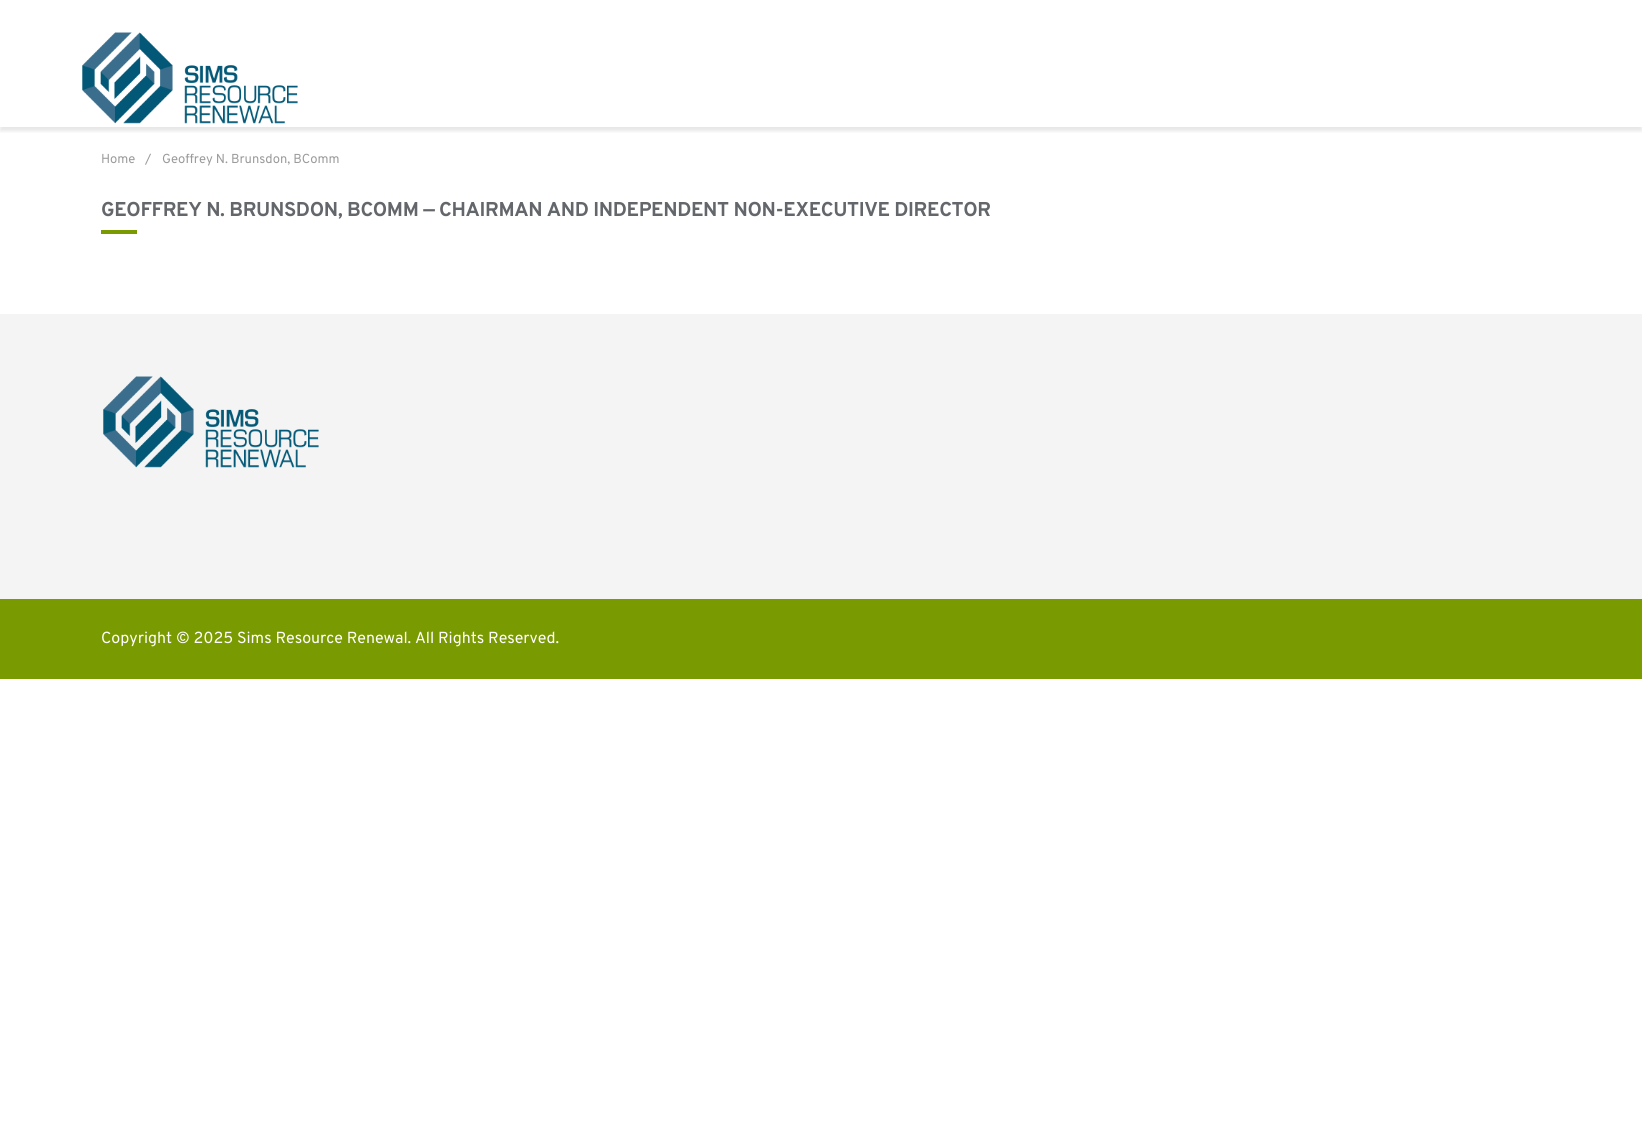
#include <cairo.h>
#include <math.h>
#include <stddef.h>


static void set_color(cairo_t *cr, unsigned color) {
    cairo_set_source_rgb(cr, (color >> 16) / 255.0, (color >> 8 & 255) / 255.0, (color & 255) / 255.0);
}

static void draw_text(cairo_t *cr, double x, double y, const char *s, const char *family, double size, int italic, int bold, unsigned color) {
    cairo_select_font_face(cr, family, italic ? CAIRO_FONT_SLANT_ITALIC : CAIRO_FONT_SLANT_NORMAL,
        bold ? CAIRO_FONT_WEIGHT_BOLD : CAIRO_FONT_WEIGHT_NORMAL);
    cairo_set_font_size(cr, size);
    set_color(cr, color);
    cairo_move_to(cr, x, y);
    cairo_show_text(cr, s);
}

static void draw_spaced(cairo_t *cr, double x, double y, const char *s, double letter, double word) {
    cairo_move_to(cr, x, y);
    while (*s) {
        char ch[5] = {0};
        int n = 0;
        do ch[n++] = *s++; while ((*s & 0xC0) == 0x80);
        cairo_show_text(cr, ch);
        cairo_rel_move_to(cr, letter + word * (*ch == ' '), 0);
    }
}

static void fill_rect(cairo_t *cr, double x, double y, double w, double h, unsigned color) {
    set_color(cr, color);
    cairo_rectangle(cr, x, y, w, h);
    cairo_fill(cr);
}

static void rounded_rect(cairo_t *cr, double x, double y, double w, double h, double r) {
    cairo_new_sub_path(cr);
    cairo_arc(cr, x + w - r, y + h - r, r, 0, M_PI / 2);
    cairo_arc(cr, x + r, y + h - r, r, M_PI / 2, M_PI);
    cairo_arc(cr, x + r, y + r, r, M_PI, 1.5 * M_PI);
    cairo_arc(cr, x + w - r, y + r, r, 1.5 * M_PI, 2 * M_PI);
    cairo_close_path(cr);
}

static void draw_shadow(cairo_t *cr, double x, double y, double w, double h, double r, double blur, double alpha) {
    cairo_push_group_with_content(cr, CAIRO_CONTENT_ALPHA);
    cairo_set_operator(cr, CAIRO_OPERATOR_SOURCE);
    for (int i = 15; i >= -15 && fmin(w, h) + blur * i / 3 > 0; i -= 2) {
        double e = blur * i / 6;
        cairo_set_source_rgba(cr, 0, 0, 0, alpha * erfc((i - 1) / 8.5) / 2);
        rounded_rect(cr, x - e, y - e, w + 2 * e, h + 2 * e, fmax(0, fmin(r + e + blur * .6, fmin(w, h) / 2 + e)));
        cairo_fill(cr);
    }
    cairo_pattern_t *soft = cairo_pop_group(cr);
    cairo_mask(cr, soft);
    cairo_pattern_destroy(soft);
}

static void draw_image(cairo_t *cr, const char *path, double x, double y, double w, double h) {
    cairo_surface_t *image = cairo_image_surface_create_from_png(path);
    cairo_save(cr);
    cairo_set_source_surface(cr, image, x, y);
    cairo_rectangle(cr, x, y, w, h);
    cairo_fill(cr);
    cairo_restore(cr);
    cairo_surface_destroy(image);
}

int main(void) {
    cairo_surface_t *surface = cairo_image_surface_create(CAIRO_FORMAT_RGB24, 1642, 1132);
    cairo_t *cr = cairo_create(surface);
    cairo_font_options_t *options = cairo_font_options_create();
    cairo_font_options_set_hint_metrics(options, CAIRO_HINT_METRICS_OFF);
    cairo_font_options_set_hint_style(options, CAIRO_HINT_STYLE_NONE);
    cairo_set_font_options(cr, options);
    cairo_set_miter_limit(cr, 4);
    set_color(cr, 0xFFFFFF);
    cairo_paint(cr);
    cairo_save(cr);
    cairo_rectangle(cr, 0, 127, 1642, 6);
    cairo_clip(cr);
    set_color(cr, 0x000000);
    draw_shadow(cr, 0, 4, 1642, 127, 0, 2, 0.1);
    cairo_restore(cr);
    draw_image(cr, "assets/img1.png", 82, 32, 216, 92);
    draw_text(cr, 101, 163, "Home", "Overpass", 13, 0, 0, 0x9B9B9B);
    draw_text(cr, 145, 163, "/", "Overpass", 13, 0, 0, 0x9B9B9B);
    draw_text(cr, 162, 163, "Geoffrey N. Brunsdon, BComm", "Overpass", 13, 0, 0, 0x9B9B9B);
    cairo_select_font_face(cr, "Overpass", CAIRO_FONT_SLANT_NORMAL, CAIRO_FONT_WEIGHT_BOLD);
    cairo_set_font_size(cr, 20);
    set_color(cr, 0x63666A);
    draw_spaced(cr, 101, 216, "GEOFFREY N. BRUNSDON, BCOMM — CHAIRMAN AND INDEPENDENT NON-EXECUTIVE DIRECTOR", -0.37, 0);
    fill_rect(cr, 101, 230, 36, 4, 0x7A9A01);
    fill_rect(cr, 0, 314, 1642, 285, 0xF4F4F4);
    draw_image(cr, "assets/img2.png", 103, 376, 216, 92);
    fill_rect(cr, 0, 599, 1642, 80, 0x7A9A01);
    draw_text(cr, 101, 643, "Copyright © 2025 Sims Resource Renewal. All Rights Reserved.", "Overpass", 16, 0, 0, 0xFFFFFF);
    cairo_surface_write_to_png(surface, "output.png");
    cairo_font_options_destroy(options);
    cairo_destroy(cr);
    cairo_surface_destroy(surface);
    return 0;
}
